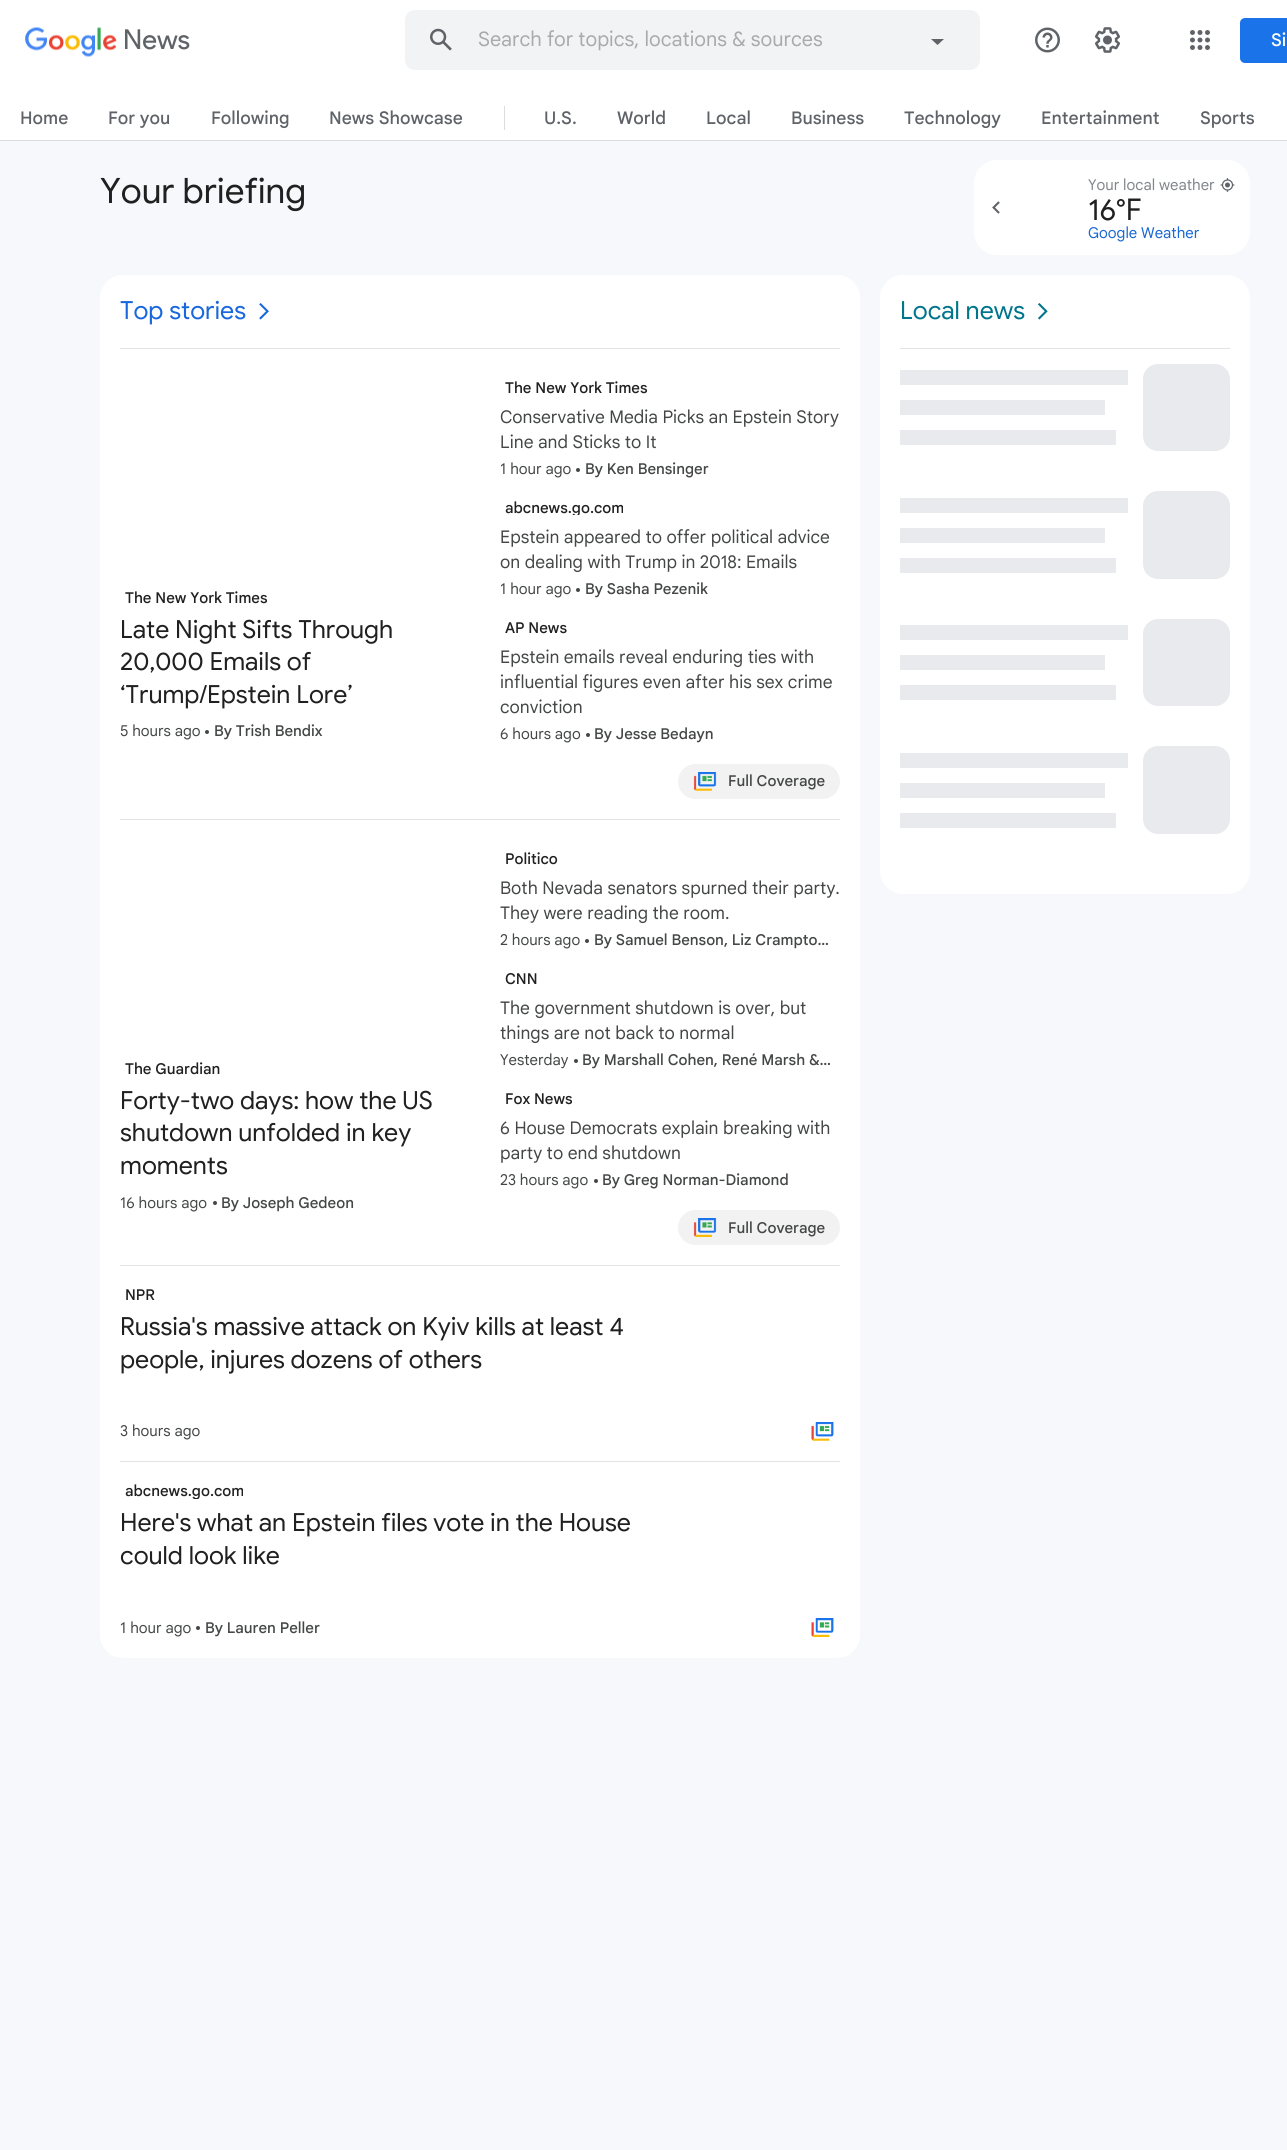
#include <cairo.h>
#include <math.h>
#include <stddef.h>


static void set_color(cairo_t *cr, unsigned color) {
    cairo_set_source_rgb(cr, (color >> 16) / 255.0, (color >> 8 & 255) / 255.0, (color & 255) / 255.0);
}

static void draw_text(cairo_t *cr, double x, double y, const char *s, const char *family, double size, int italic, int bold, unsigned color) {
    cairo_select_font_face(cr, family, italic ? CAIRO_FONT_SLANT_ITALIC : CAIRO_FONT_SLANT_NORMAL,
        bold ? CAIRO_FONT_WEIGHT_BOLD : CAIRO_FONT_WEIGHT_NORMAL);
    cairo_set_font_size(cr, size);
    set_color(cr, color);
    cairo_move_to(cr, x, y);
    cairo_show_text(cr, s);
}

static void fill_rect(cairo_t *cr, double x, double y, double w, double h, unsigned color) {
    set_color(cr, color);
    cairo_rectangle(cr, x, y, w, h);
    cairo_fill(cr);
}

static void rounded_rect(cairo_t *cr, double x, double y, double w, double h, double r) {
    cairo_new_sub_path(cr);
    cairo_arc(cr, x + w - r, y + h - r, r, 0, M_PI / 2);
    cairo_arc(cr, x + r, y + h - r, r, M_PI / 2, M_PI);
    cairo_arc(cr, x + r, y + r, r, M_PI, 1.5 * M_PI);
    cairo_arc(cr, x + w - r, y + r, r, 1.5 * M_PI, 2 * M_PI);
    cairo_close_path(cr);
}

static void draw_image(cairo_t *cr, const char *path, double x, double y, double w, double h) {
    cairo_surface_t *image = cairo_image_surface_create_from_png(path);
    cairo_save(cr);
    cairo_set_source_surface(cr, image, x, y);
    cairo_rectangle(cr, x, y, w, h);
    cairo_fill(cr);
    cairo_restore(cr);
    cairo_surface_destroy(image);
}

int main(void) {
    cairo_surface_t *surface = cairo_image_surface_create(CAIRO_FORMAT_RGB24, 1287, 2150);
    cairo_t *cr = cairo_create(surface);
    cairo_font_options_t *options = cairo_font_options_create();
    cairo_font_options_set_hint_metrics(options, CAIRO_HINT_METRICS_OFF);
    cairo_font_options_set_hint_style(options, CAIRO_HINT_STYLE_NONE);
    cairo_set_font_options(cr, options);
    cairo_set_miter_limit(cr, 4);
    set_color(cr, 0xF6F8FC);
    cairo_paint(cr);
    fill_rect(cr, 0, 0, 1287, 140, 0xFFFFFF);
    draw_image(cr, "assets/img1.png", 25, 27, 92, 30);
    draw_text(cr, 123, 49, "News", "Product Sans", 27.5, 0, 0, 0x5F6368);
    set_color(cr, 0xF1F3F4);
    rounded_rect(cr, 405, 10, 575, 60, 10);
    cairo_fill(cr);
    draw_image(cr, "assets/img2.png", 430, 28, 22, 23);
    draw_text(cr, 478, 46, "Search for topics, locations & sources", "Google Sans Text", 20, 0, 0, 0xA9AAAB);
    set_color(cr, 0x5F6368);
    cairo_new_path(cr);
    cairo_move_to(cr, 931, 39);
    cairo_line_to(cr, 937.5, 45);
    cairo_line_to(cr, 944, 39);
    cairo_close_path(cr);
    cairo_fill(cr);
    draw_image(cr, "assets/img3.png", 1035, 27, 25, 26);
    draw_image(cr, "assets/img4.png", 1095, 27, 25, 26);
    draw_image(cr, "assets/img5.png", 1190, 30, 20, 20);
    set_color(cr, 0x1A73E8);
    rounded_rect(cr, 1240, 18, 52, 45, 5);
    cairo_fill(cr);
    draw_text(cr, 1271, 46, "Si", "Google Sans Medium", 17.5, 0, 0, 0xFFFFFF);
    fill_rect(cr, 0, 140, 1287, 1, 0xDADCE0);
    draw_text(cr, 20, 124, "Home", "Google Sans Medium", 17.5, 0, 0, 0x5F6368);
    draw_text(cr, 108, 124, "For you", "Google Sans Medium", 17.5, 0, 0, 0x5F6368);
    draw_text(cr, 211, 124, "Following", "Google Sans Medium", 17.5, 0, 0, 0x5F6368);
    draw_text(cr, 329, 124, "News Showcase", "Google Sans Medium", 17.5, 0, 0, 0x5F6368);
    fill_rect(cr, 504, 106, 1, 24, 0xDADCE0);
    draw_text(cr, 544, 124, "U.S.", "Google Sans Medium", 17.5, 0, 0, 0x5F6368);
    draw_text(cr, 617, 124, "World", "Google Sans Medium", 17.5, 0, 0, 0x5F6368);
    draw_text(cr, 706, 124, "Local", "Google Sans Medium", 17.5, 0, 0, 0x5F6368);
    draw_text(cr, 791, 124, "Business", "Google Sans Medium", 17.5, 0, 0, 0x5F6368);
    draw_text(cr, 904, 124, "Technology", "Google Sans Medium", 17.5, 0, 0, 0x5F6368);
    draw_text(cr, 1041, 124, "Entertainment", "Google Sans Medium", 17.5, 0, 0, 0x5F6368);
    draw_text(cr, 1200, 124, "Sports", "Google Sans Medium", 17.5, 0, 0, 0x5F6368);
    draw_text(cr, 100, 203, "Your briefing", "Google Sans", 35, 0, 0, 0x202021);
    set_color(cr, 0xFFFFFF);
    rounded_rect(cr, 974, 160, 276, 95, 23);
    cairo_fill(cr);
    draw_image(cr, "assets/img6.png", 992, 201, 8, 13);
    draw_text(cr, 1088, 190, "Your local weather", "Google Sans Text", 15, 0, 0, 0x80868B);
    draw_image(cr, "assets/img7.png", 1220, 178, 15, 14);
    draw_text(cr, 1088, 220, "16°F", "Google Sans", 30, 0, 0, 0x202021);
    draw_text(cr, 1088, 238, "Google Weather", "Google Sans Text", 15, 0, 0, 0x1967D2);
    set_color(cr, 0xFFFFFF);
    rounded_rect(cr, 100, 275, 760, 1383, 23);
    cairo_fill(cr);
    fill_rect(cr, 120, 348, 720, 1, 0xE3E3E3);
    draw_text(cr, 120, 319, "Top stories", "Google Sans", 25, 0, 0, 0x1867DC);
    draw_image(cr, "assets/img8.png", 259, 303, 10, 17);
    draw_text(cr, 125, 603, "The New York Times", "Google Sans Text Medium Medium", 15, 0, 0, 0x202021);
    draw_text(cr, 120, 638, "Late Night Sifts Through", "Google Sans", 25, 0, 0, 0x202021);
    draw_text(cr, 120, 670, "20,000 Emails of", "Google Sans", 25, 0, 0, 0x202021);
    draw_text(cr, 120, 703, "‘Trump/Epstein Lore’", "Google Sans", 25, 0, 0, 0x202021);
    draw_text(cr, 120, 736, "5 hours ago", "Google Sans Text", 15, 0, 0, 0x444746);
    cairo_new_path(cr);
    cairo_arc(cr, 207, 732, 2, 0, 2 * M_PI);
    cairo_fill(cr);
    draw_text(cr, 214, 736, "By Trish Bendix", "Google Sans Text Medium Medium", 15, 0, 0, 0x444746);
    draw_text(cr, 505, 393, "The New York Times", "Google Sans Text Medium Medium", 15, 0, 0, 0x202021);
    draw_text(cr, 500, 423, "Conservative Media Picks an Epstein Story", "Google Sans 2", 17.5, 0, 0, 0x444746);
    draw_text(cr, 500, 448, "Line and Sticks to It", "Google Sans 2", 17.5, 0, 0, 0x444746);
    draw_text(cr, 500, 474, "1 hour ago", "Google Sans Text", 15, 0, 0, 0x444746);
    cairo_new_path(cr);
    cairo_arc(cr, 578, 470, 2, 0, 2 * M_PI);
    cairo_fill(cr);
    draw_text(cr, 585, 474, "By Ken Bensinger", "Google Sans Text Medium Medium", 15, 0, 0, 0x444746);
    cairo_save(cr);
    cairo_rectangle(cr, 505, 500, 119, 15);
    cairo_clip(cr);
    draw_text(cr, 505, 513, "abcnews.go.com", "Google Sans Text Medium Medium", 15, 0, 0, 0x202021);
    cairo_restore(cr);
    draw_text(cr, 500, 543, "Epstein appeared to offer political advice", "Google Sans 2", 17.5, 0, 0, 0x444746);
    draw_text(cr, 500, 568, "on dealing with Trump in 2018: Emails", "Google Sans 2", 17.5, 0, 0, 0x444746);
    draw_text(cr, 500, 594, "1 hour ago", "Google Sans Text", 15, 0, 0, 0x444746);
    cairo_new_path(cr);
    cairo_arc(cr, 578, 590, 2, 0, 2 * M_PI);
    cairo_fill(cr);
    draw_text(cr, 585, 594, "By Sasha Pezenik", "Google Sans Text Medium Medium", 15, 0, 0, 0x444746);
    draw_text(cr, 505, 633, "AP News", "Google Sans Text Medium Medium", 15, 0, 0, 0x202021);
    draw_text(cr, 500, 663, "Epstein emails reveal enduring ties with", "Google Sans 2", 17.5, 0, 0, 0x444746);
    draw_text(cr, 500, 688, "influential figures even after his sex crime", "Google Sans 2", 17.5, 0, 0, 0x444746);
    draw_text(cr, 500, 713, "conviction", "Google Sans 2", 17.5, 0, 0, 0x444746);
    draw_text(cr, 500, 739, "6 hours ago", "Google Sans Text", 15, 0, 0, 0x444746);
    cairo_new_path(cr);
    cairo_arc(cr, 588, 735, 2, 0, 2 * M_PI);
    cairo_fill(cr);
    draw_text(cr, 594, 739, "By Jesse Bedayn", "Google Sans Text Medium Medium", 15, 0, 0, 0x444746);
    set_color(cr, 0xF2F2F2);
    rounded_rect(cr, 678, 764, 162, 35, 17.5);
    cairo_fill(cr);
    draw_image(cr, "assets/img9.png", 693, 772, 24, 19);
    draw_text(cr, 728, 786, "Full Coverage", "Google Sans Text Medium Medium", 15, 0, 0, 0x444746);
    fill_rect(cr, 120, 819, 720, 1, 0xE3E3E3);
    draw_text(cr, 125, 1074, "The Guardian", "Google Sans Text Medium Medium", 15, 0, 0, 0x202021);
    draw_text(cr, 120, 1109, "Forty-two days: how the US", "Google Sans", 25, 0, 0, 0x202021);
    draw_text(cr, 120, 1141, "shutdown unfolded in key", "Google Sans", 25, 0, 0, 0x202021);
    draw_text(cr, 120, 1174, "moments", "Google Sans", 25, 0, 0, 0x202021);
    draw_text(cr, 120, 1208, "16 hours ago", "Google Sans Text", 15, 0, 0, 0x444746);
    cairo_new_path(cr);
    cairo_arc(cr, 215, 1203, 2, 0, 2 * M_PI);
    cairo_fill(cr);
    draw_text(cr, 221, 1208, "By Joseph Gedeon", "Google Sans Text Medium Medium", 15, 0, 0, 0x444746);
    draw_text(cr, 505, 864, "Politico", "Google Sans Text Medium Medium", 15, 0, 0, 0x202021);
    draw_text(cr, 500, 894, "Both Nevada senators spurned their party.", "Google Sans 2", 17.5, 0, 0, 0x444746);
    draw_text(cr, 500, 919, "They were reading the room.", "Google Sans 2", 17.5, 0, 0, 0x444746);
    draw_text(cr, 500, 945, "2 hours ago", "Google Sans Text", 15, 0, 0, 0x444746);
    cairo_new_path(cr);
    cairo_arc(cr, 587, 941, 2, 0, 2 * M_PI);
    cairo_fill(cr);
    draw_text(cr, 594, 945, "By Samuel Benson, Liz Crampto…", "Google Sans Text Medium Medium", 15, 0, 0, 0x444746);
    draw_text(cr, 505, 984, "CNN", "Google Sans Text Medium Medium", 15, 0, 0, 0x202021);
    draw_text(cr, 500, 1014, "The government shutdown is over, but", "Google Sans 2", 17.5, 0, 0, 0x444746);
    draw_text(cr, 500, 1039, "things are not back to normal", "Google Sans 2", 17.5, 0, 0, 0x444746);
    draw_text(cr, 500, 1065, "Yesterday", "Google Sans Text", 15, 0, 0, 0x444746);
    cairo_new_path(cr);
    cairo_arc(cr, 576, 1061, 2, 0, 2 * M_PI);
    cairo_fill(cr);
    draw_text(cr, 582, 1065, "By Marshall Cohen, René Marsh &…", "Google Sans Text Medium Medium", 15, 0, 0, 0x444746);
    draw_text(cr, 505, 1104, "Fox News", "Google Sans Text Medium Medium", 15, 0, 0, 0x202021);
    draw_text(cr, 500, 1134, "6 House Democrats explain breaking with", "Google Sans 2", 17.5, 0, 0, 0x444746);
    draw_text(cr, 500, 1159, "party to end shutdown", "Google Sans 2", 17.5, 0, 0, 0x444746);
    draw_text(cr, 500, 1185, "23 hours ago", "Google Sans Text", 15, 0, 0, 0x444746);
    cairo_new_path(cr);
    cairo_arc(cr, 596, 1181, 2, 0, 2 * M_PI);
    cairo_fill(cr);
    draw_text(cr, 602, 1185, "By Greg Norman-Diamond", "Google Sans Text Medium Medium", 15, 0, 0, 0x444746);
    set_color(cr, 0xF2F2F2);
    rounded_rect(cr, 678, 1210, 162, 35, 17.5);
    cairo_fill(cr);
    draw_image(cr, "assets/img10.png", 693, 1218, 24, 19);
    draw_text(cr, 728, 1233, "Full Coverage", "Google Sans Text Medium Medium", 15, 0, 0, 0x444746);
    fill_rect(cr, 120, 1265, 720, 1, 0xE3E3E3);
    draw_text(cr, 125, 1300, "NPR", "Google Sans Text Medium Medium", 15, 0, 0, 0x202021);
    draw_text(cr, 120, 1335, "Russia's massive attack on Kyiv kills at least 4", "Google Sans", 25, 0, 0, 0x202021);
    draw_text(cr, 120, 1368, "people, injures dozens of others", "Google Sans", 25, 0, 0, 0x202021);
    draw_text(cr, 120, 1436, "3 hours ago", "Google Sans Text", 15, 0, 0, 0x444746);
    draw_image(cr, "assets/img11.png", 811, 1422, 23, 19);
    fill_rect(cr, 120, 1461, 720, 1, 0xE3E3E3);
    cairo_save(cr);
    cairo_rectangle(cr, 125, 1484, 119, 15);
    cairo_clip(cr);
    draw_text(cr, 125, 1496, "abcnews.go.com", "Google Sans Text Medium Medium", 15, 0, 0, 0x202021);
    cairo_restore(cr);
    draw_text(cr, 120, 1531, "Here's what an Epstein files vote in the House", "Google Sans", 25, 0, 0, 0x202021);
    draw_text(cr, 120, 1564, "could look like", "Google Sans", 25, 0, 0, 0x202021);
    draw_text(cr, 120, 1633, "1 hour ago", "Google Sans Text", 15, 0, 0, 0x444746);
    cairo_new_path(cr);
    cairo_arc(cr, 198, 1628, 2, 0, 2 * M_PI);
    cairo_fill(cr);
    draw_text(cr, 205, 1633, "By Lauren Peller", "Google Sans Text Medium Medium", 15, 0, 0, 0x444746);
    draw_image(cr, "assets/img12.png", 811, 1618, 23, 19);
    set_color(cr, 0xFFFFFF);
    rounded_rect(cr, 880, 275, 370, 619, 23);
    cairo_fill(cr);
    fill_rect(cr, 900, 348, 330, 1, 0xE3E3E3);
    draw_text(cr, 900, 319, "Local news", "Google Sans", 25, 0, 0, 0x00758C);
    draw_image(cr, "assets/img13.png", 1038, 303, 10, 17);
    fill_rect(cr, 900, 370, 228, 15, 0xE8EAED);
    fill_rect(cr, 900, 400, 205, 15, 0xE8EAED);
    fill_rect(cr, 900, 430, 216, 15, 0xE8EAED);
    rounded_rect(cr, 1143, 364, 87, 87, 15);
    cairo_fill(cr);
    fill_rect(cr, 900, 498, 228, 15, 0xE8EAED);
    fill_rect(cr, 900, 528, 205, 15, 0xE8EAED);
    fill_rect(cr, 900, 558, 216, 15, 0xE8EAED);
    rounded_rect(cr, 1143, 491, 87, 88, 15);
    cairo_fill(cr);
    fill_rect(cr, 900, 625, 228, 15, 0xE8EAED);
    fill_rect(cr, 900, 655, 205, 15, 0xE8EAED);
    fill_rect(cr, 900, 685, 216, 15, 0xE8EAED);
    rounded_rect(cr, 1143, 619, 87, 87, 15);
    cairo_fill(cr);
    fill_rect(cr, 900, 753, 228, 15, 0xE8EAED);
    fill_rect(cr, 900, 783, 205, 15, 0xE8EAED);
    fill_rect(cr, 900, 813, 216, 15, 0xE8EAED);
    rounded_rect(cr, 1143, 746, 87, 88, 15);
    cairo_fill(cr);
    cairo_surface_write_to_png(surface, "output.png");
    cairo_font_options_destroy(options);
    cairo_destroy(cr);
    cairo_surface_destroy(surface);
    return 0;
}
